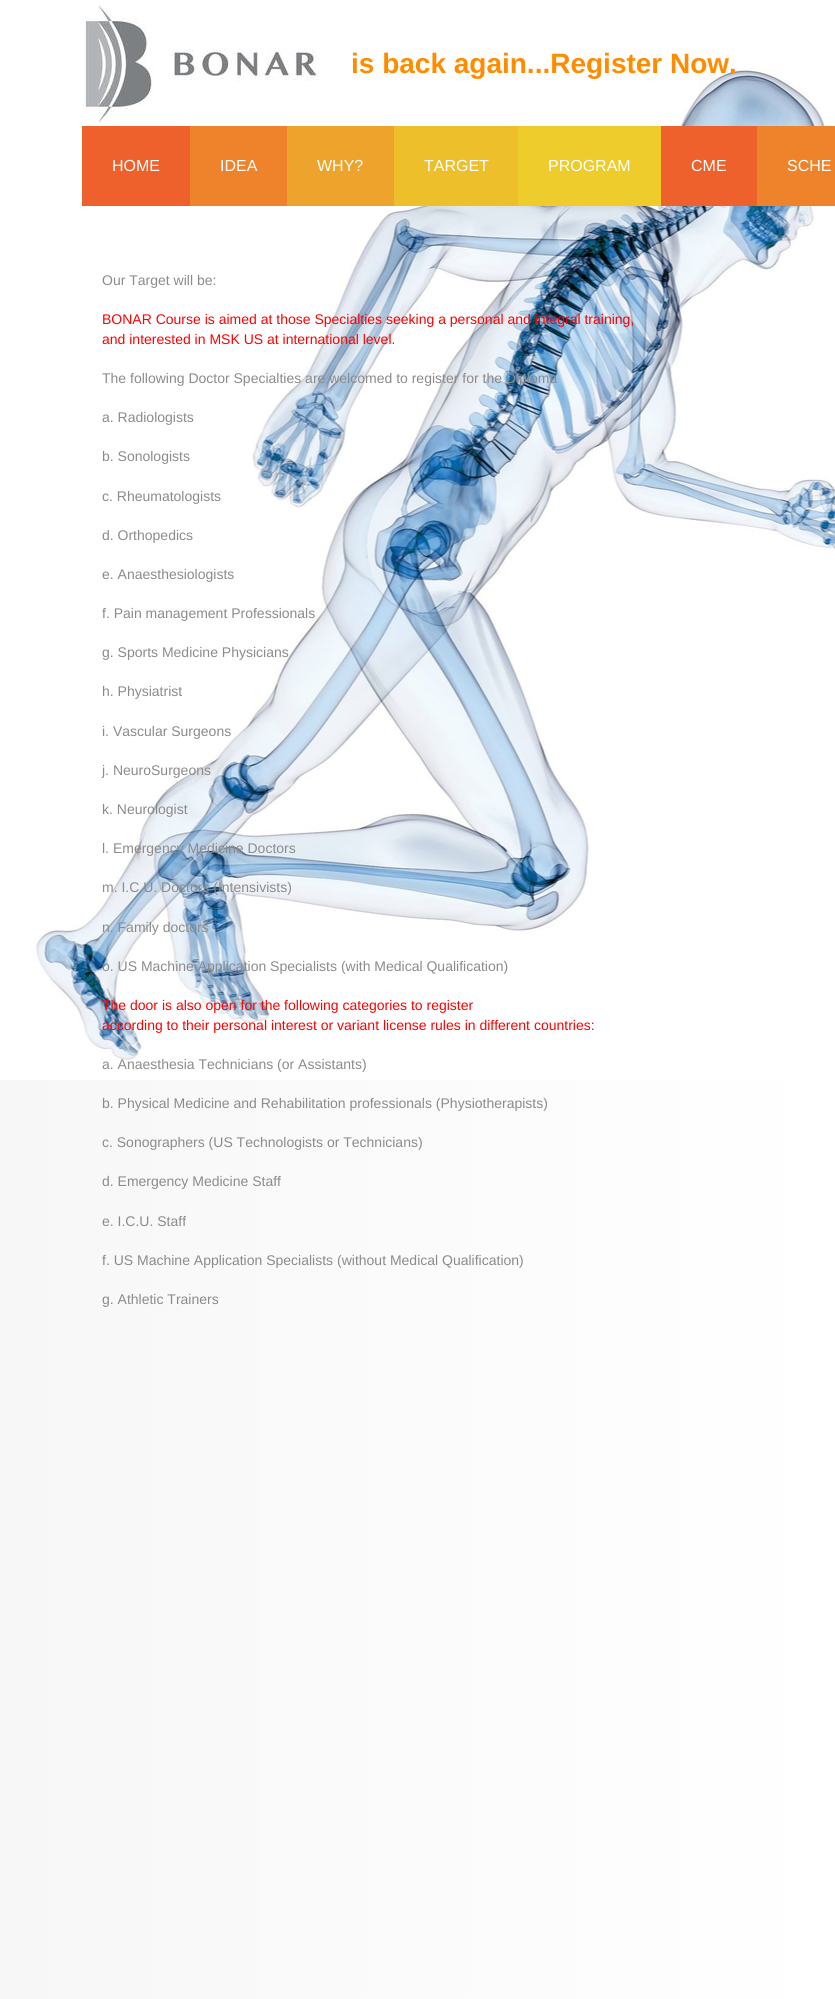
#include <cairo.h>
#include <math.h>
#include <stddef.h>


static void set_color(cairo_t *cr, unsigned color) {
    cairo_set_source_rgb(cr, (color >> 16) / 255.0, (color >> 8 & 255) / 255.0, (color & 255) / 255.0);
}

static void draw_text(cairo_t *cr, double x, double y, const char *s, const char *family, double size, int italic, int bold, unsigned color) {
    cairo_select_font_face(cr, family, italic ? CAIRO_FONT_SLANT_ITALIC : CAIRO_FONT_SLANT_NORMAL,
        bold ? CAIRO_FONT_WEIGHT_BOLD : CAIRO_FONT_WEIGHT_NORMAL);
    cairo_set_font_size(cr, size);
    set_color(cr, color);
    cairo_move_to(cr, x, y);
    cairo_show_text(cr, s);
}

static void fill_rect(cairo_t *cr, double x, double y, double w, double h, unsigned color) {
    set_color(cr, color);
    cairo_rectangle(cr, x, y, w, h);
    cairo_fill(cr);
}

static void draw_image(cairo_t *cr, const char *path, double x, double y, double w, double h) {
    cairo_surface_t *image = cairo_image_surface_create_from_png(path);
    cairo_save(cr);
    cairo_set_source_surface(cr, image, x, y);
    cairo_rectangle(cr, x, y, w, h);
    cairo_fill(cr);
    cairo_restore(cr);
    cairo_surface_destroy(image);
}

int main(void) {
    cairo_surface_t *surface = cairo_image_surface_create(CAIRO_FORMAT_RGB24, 835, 1999);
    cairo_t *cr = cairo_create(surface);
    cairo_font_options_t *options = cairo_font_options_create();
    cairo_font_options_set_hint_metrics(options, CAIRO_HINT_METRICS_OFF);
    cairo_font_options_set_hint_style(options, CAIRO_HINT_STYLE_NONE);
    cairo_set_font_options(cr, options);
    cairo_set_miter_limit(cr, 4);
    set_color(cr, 0xFFFFFF);
    cairo_paint(cr);
    draw_image(cr, "assets/img1.png", 0, 68, 835, 1931);
    draw_image(cr, "assets/img2.png", 83, 5, 236, 118);
    draw_text(cr, 351, 73, "is back again...Register Now.", "Liberation Sans", 28, 0, 1, 0xFF8C00);
    fill_rect(cr, 82, 126, 108, 80, 0xEE612C);
    draw_text(cr, 112, 171, "HOME", "Liberation Sans", 16, 0, 0, 0xFFFFFF);
    fill_rect(cr, 190, 126, 97, 80, 0xEF832B);
    draw_text(cr, 220, 171, "IDEA", "Liberation Sans", 16, 0, 0, 0xFFFFFF);
    fill_rect(cr, 287, 126, 107, 80, 0xEEA32C);
    draw_text(cr, 317, 171, "WHY?", "Liberation Sans", 16, 0, 0, 0xFFFFFF);
    fill_rect(cr, 394, 126, 124, 80, 0xEDBF2B);
    draw_text(cr, 424, 171, "TARGET", "Liberation Sans", 16, 0, 0, 0xFFFFFF);
    fill_rect(cr, 518, 126, 143, 80, 0xEDCC2B);
    draw_text(cr, 548, 171, "PROGRAM", "Liberation Sans", 16, 0, 0, 0xFFFFFF);
    fill_rect(cr, 661, 126, 96, 80, 0xEE612C);
    draw_text(cr, 691, 171, "CME", "Liberation Sans", 16, 0, 0, 0xFFFFFF);
    fill_rect(cr, 757, 126, 78, 80, 0xEF832B);
    draw_text(cr, 787, 171, "SCHE", "Liberation Sans", 16, 0, 0, 0xFFFFFF);
    draw_text(cr, 102, 285, "Our Target will be:", "Liberation Sans", 14, 0, 0, 0x8C8B8B);
    draw_text(cr, 102, 324, "BONAR Course is aimed at those Specialties seeking a personal and integral training,", "Liberation Sans", 14, 0, 0, 0xFF0000);
    draw_text(cr, 102, 344, "and interested in MSK US at international level.", "Liberation Sans", 14, 0, 0, 0xFF0000);
    draw_text(cr, 102, 383, "The following Doctor Specialties are welcomed to register for the Diploma", "Liberation Sans", 14, 0, 0, 0x8C8B8B);
    draw_text(cr, 102, 422, "a. Radiologists", "Liberation Sans", 14, 0, 0, 0x8C8B8B);
    draw_text(cr, 102, 461, "b. Sonologists", "Liberation Sans", 14, 0, 0, 0x8C8B8B);
    draw_text(cr, 102, 501, "c. Rheumatologists", "Liberation Sans", 14, 0, 0, 0x8C8B8B);
    draw_text(cr, 102, 540, "d. Orthopedics", "Liberation Sans", 14, 0, 0, 0x8C8B8B);
    draw_text(cr, 102, 579, "e. Anaesthesiologists", "Liberation Sans", 14, 0, 0, 0x8C8B8B);
    draw_text(cr, 102, 618, "f. Pain management Professionals", "Liberation Sans", 14, 0, 0, 0x8C8B8B);
    draw_text(cr, 102, 657, "g. Sports Medicine Physicians", "Liberation Sans", 14, 0, 0, 0x8C8B8B);
    draw_text(cr, 102, 696, "h. Physiatrist", "Liberation Sans", 14, 0, 0, 0x8C8B8B);
    draw_text(cr, 102, 736, "i. Vascular Surgeons", "Liberation Sans", 14, 0, 0, 0x8C8B8B);
    draw_text(cr, 102, 775, "j. NeuroSurgeons", "Liberation Sans", 14, 0, 0, 0x8C8B8B);
    draw_text(cr, 102, 814, "k. Neurologist", "Liberation Sans", 14, 0, 0, 0x8C8B8B);
    draw_text(cr, 102, 853, "l. Emergency Medicine Doctors", "Liberation Sans", 14, 0, 0, 0x8C8B8B);
    draw_text(cr, 102, 892, "m. I.C.U. Doctors (Intensivists)", "Liberation Sans", 14, 0, 0, 0x8C8B8B);
    draw_text(cr, 102, 932, "n. Family doctors", "Liberation Sans", 14, 0, 0, 0x8C8B8B);
    draw_text(cr, 102, 971, "o. US Machine Application Specialists (with Medical Qualification)", "Liberation Sans", 14, 0, 0, 0x8C8B8B);
    draw_text(cr, 102, 1010, "The door is also open for the following categories to register", "Liberation Sans", 14, 0, 0, 0xFF0000);
    draw_text(cr, 102, 1030, "according to their personal interest or variant license rules in different countries:", "Liberation Sans", 14, 0, 0, 0xFF0000);
    draw_text(cr, 102, 1069, "a. Anaesthesia Technicians (or Assistants)", "Liberation Sans", 14, 0, 0, 0x8C8B8B);
    draw_text(cr, 102, 1108, "b. Physical Medicine and Rehabilitation professionals (Physiotherapists)", "Liberation Sans", 14, 0, 0, 0x8C8B8B);
    draw_text(cr, 102, 1147, "c. Sonographers (US Technologists or Technicians)", "Liberation Sans", 14, 0, 0, 0x8C8B8B);
    draw_text(cr, 102, 1186, "d. Emergency Medicine Staff", "Liberation Sans", 14, 0, 0, 0x8C8B8B);
    draw_text(cr, 102, 1226, "e. I.C.U. Staff", "Liberation Sans", 14, 0, 0, 0x8C8B8B);
    draw_text(cr, 102, 1265, "f. US Machine Application Specialists (without Medical Qualification)", "Liberation Sans", 14, 0, 0, 0x8C8B8B);
    draw_text(cr, 102, 1304, "g. Athletic Trainers", "Liberation Sans", 14, 0, 0, 0x8C8B8B);
    cairo_surface_write_to_png(surface, "output.png");
    cairo_font_options_destroy(options);
    cairo_destroy(cr);
    cairo_surface_destroy(surface);
    return 0;
}
